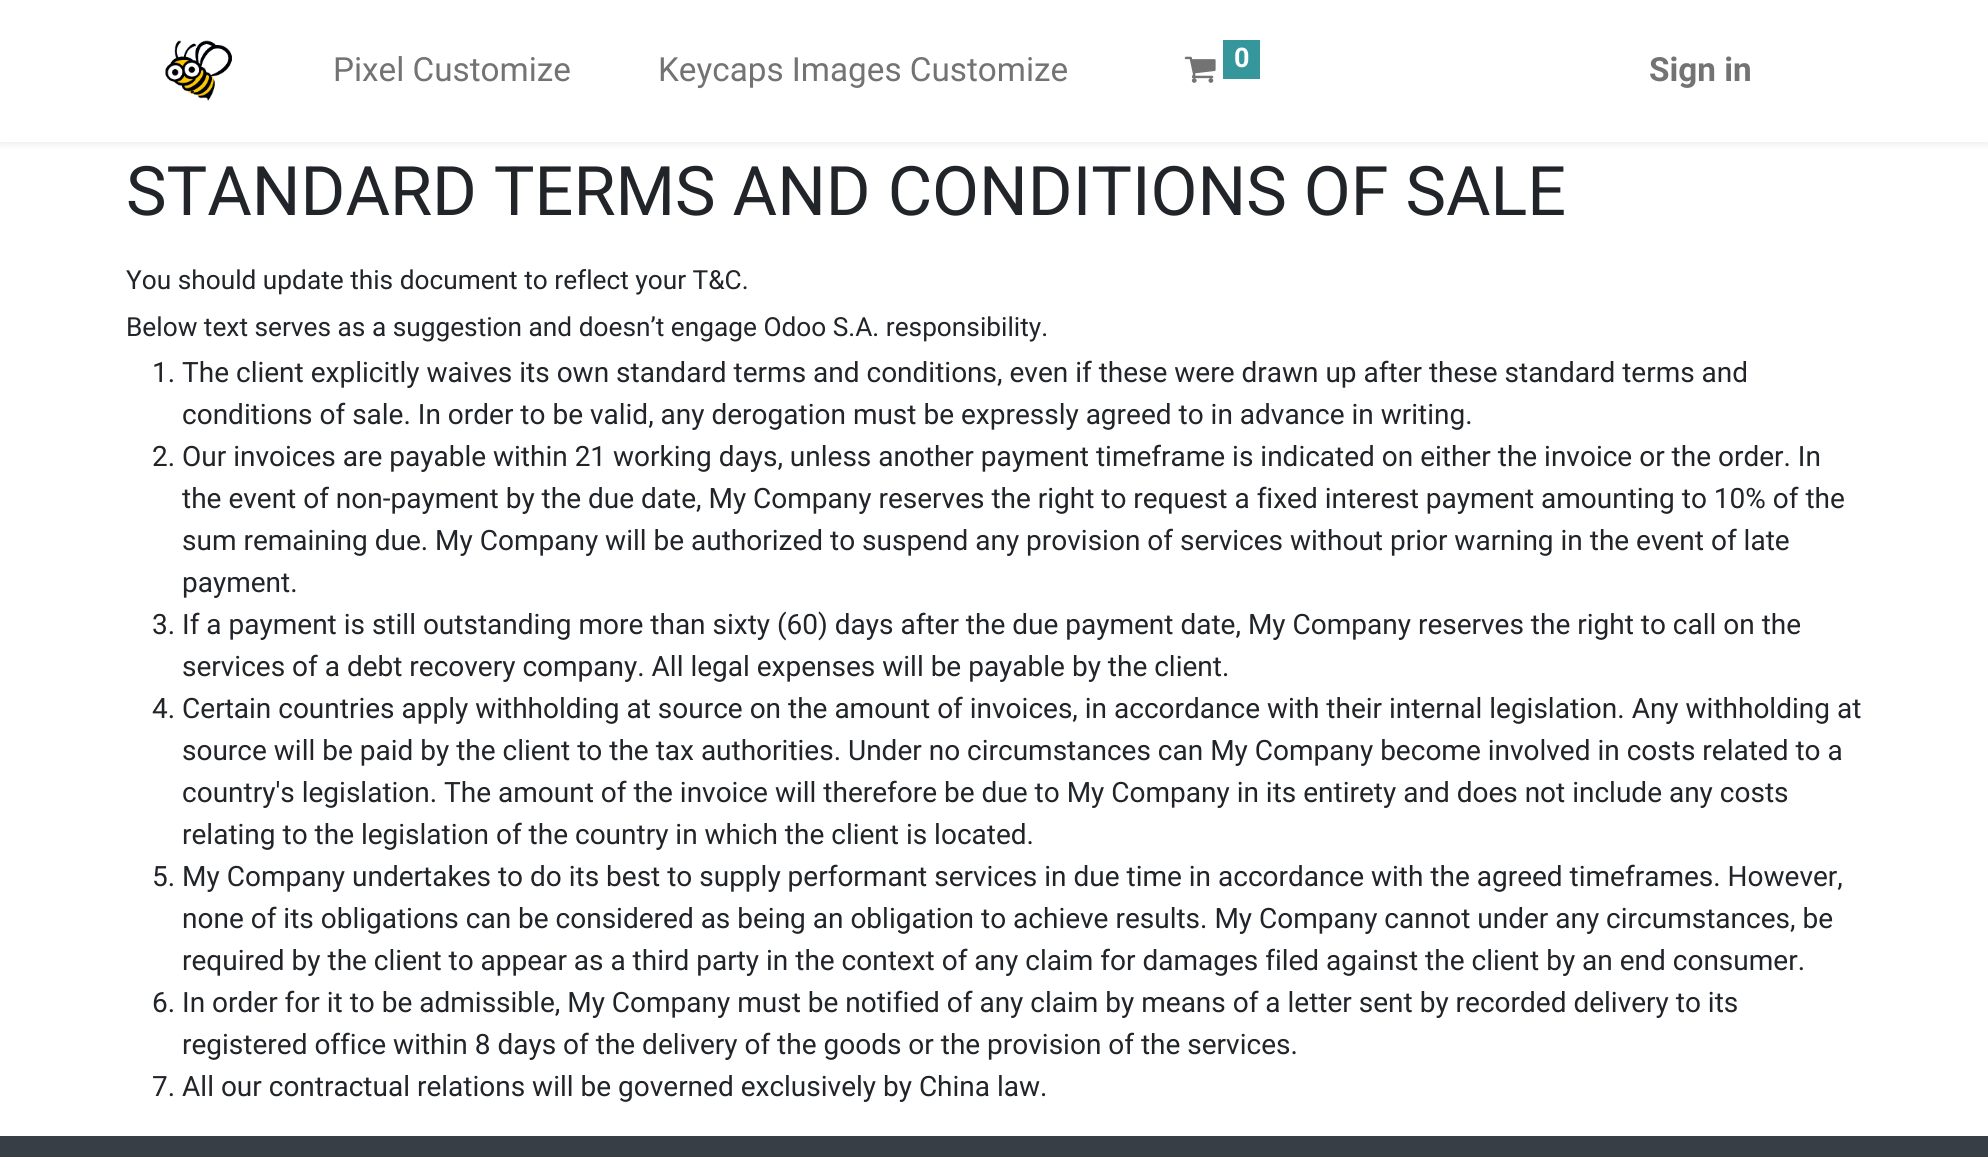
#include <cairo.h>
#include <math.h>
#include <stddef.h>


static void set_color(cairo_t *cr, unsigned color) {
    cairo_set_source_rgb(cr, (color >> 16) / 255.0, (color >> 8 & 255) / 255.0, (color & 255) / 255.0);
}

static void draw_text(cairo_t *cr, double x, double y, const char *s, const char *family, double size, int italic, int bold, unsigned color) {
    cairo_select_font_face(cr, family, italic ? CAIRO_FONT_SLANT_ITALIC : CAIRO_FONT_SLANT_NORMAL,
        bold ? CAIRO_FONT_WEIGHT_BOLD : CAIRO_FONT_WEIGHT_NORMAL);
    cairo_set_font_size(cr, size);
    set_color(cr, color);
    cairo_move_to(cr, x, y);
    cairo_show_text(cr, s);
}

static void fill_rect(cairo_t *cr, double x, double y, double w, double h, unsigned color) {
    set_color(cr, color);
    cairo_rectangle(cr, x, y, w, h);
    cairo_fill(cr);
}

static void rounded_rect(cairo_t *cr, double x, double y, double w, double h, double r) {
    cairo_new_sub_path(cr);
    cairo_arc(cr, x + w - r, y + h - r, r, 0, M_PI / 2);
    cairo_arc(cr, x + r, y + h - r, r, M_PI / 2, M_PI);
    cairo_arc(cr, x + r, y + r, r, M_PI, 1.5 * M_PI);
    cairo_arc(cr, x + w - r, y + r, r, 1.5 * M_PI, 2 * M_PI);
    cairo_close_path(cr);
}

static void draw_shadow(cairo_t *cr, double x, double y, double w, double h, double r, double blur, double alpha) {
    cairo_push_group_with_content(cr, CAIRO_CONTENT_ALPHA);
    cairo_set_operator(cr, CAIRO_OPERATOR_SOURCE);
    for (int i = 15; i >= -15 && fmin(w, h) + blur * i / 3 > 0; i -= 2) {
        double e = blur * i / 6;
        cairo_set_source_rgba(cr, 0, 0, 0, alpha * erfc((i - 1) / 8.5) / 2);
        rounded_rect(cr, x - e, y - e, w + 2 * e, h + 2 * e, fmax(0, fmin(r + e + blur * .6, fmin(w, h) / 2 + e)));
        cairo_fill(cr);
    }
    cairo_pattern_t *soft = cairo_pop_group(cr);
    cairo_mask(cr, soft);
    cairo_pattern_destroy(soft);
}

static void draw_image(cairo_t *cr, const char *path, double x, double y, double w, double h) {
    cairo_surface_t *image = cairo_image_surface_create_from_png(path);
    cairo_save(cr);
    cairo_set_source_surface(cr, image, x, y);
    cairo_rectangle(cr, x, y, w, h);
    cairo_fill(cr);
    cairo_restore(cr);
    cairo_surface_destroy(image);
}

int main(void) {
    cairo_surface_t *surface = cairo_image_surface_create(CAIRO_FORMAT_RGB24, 1988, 1157);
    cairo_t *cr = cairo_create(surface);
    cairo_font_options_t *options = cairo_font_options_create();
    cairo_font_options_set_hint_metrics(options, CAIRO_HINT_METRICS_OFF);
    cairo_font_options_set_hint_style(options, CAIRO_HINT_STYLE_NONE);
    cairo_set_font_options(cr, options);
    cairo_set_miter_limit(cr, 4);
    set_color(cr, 0xFFFFFF);
    cairo_paint(cr);
    set_color(cr, 0x000000);
    draw_shadow(cr, 0, 4, 1988, 141, 0, 3.5, 0.07);
    fill_rect(cr, 0, 0, 1988, 142, 0xFFFFFF);
    draw_image(cr, "assets/img1.png", 165, 40, 68, 61);
    draw_text(cr, 333, 81, "Pixel Customize", "Roboto", 33.25, 0, 0, 0x737373);
    draw_text(cr, 658, 81, "Keycaps Images Customize", "Roboto", 33.25, 0, 0, 0x737373);
    draw_image(cr, "assets/img2.png", 1184, 56, 32, 27);
    fill_rect(cr, 1223, 40, 37, 39, 0x35979C);
    draw_text(cr, 1234, 67, "0", "Roboto", 27, 0, 1, 0xFFFFFF);
    draw_text(cr, 1649, 81, "Sign in", "Roboto", 33.25, 0, 1, 0x737373);
    draw_text(cr, 126, 215, "STANDARD TERMS AND CONDITIONS OF SALE", "Roboto", 68.3, 0, 0, 0x212529);
    draw_text(cr, 126, 289, "You should update this document to reflect your T&C.", "Roboto", 26.25, 0, 0, 0x212529);
    draw_text(cr, 126, 336, "Below text serves as a suggestion and doesn’t engage Odoo S.A. responsibility.", "Roboto", 26.25, 0, 0, 0x212529);
    draw_text(cr, 152, 382, "1. The client explicitly waives its own standard terms and conditions, even if these were drawn up after these standard terms and", "Roboto", 28, 0, 0, 0x212529);
    draw_text(cr, 182, 424, "conditions of sale. In order to be valid, any derogation must be expressly agreed to in advance in writing.", "Roboto", 28, 0, 0, 0x212529);
    draw_text(cr, 152, 466, "2. Our invoices are payable within 21 working days, unless another payment timeframe is indicated on either the invoice or the order. In", "Roboto", 28, 0, 0, 0x212529);
    draw_text(cr, 182, 508, "the event of non-payment by the due date, My Company reserves the right to request a fixed interest payment amounting to 10% of the", "Roboto", 28, 0, 0, 0x212529);
    draw_text(cr, 182, 550, "sum remaining due. My Company will be authorized to suspend any provision of services without prior warning in the event of late", "Roboto", 28, 0, 0, 0x212529);
    draw_text(cr, 182, 592, "payment.", "Roboto", 28, 0, 0, 0x212529);
    draw_text(cr, 152, 634, "3. If a payment is still outstanding more than sixty (60) days after the due payment date, My Company reserves the right to call on the", "Roboto", 28, 0, 0, 0x212529);
    draw_text(cr, 182, 676, "services of a debt recovery company. All legal expenses will be payable by the client.", "Roboto", 28, 0, 0, 0x212529);
    draw_text(cr, 152, 718, "4. Certain countries apply withholding at source on the amount of invoices, in accordance with their internal legislation. Any withholding at", "Roboto", 28, 0, 0, 0x212529);
    draw_text(cr, 182, 760, "source will be paid by the client to the tax authorities. Under no circumstances can My Company become involved in costs related to a", "Roboto", 28, 0, 0, 0x212529);
    draw_text(cr, 182, 802, "country's legislation. The amount of the invoice will therefore be due to My Company in its entirety and does not include any costs", "Roboto", 28, 0, 0, 0x212529);
    draw_text(cr, 182, 844, "relating to the legislation of the country in which the client is located.", "Roboto", 28, 0, 0, 0x212529);
    draw_text(cr, 152, 886, "5. My Company undertakes to do its best to supply performant services in due time in accordance with the agreed timeframes. However,", "Roboto", 28, 0, 0, 0x212529);
    draw_text(cr, 182, 928, "none of its obligations can be considered as being an obligation to achieve results. My Company cannot under any circumstances, be", "Roboto", 28, 0, 0, 0x212529);
    draw_text(cr, 182, 970, "required by the client to appear as a third party in the context of any claim for damages filed against the client by an end consumer.", "Roboto", 28, 0, 0, 0x212529);
    draw_text(cr, 152, 1012, "6. In order for it to be admissible, My Company must be notified of any claim by means of a letter sent by recorded delivery to its", "Roboto", 28, 0, 0, 0x212529);
    draw_text(cr, 182, 1054, "registered office within 8 days of the delivery of the goods or the provision of the services.", "Roboto", 28, 0, 0, 0x212529);
    draw_text(cr, 152, 1096, "7. All our contractual relations will be governed exclusively by China law.", "Roboto", 28, 0, 0, 0x212529);
    fill_rect(cr, 0, 1136, 1988, 21, 0x383E45);
    cairo_surface_write_to_png(surface, "output.png");
    cairo_font_options_destroy(options);
    cairo_destroy(cr);
    cairo_surface_destroy(surface);
    return 0;
}
